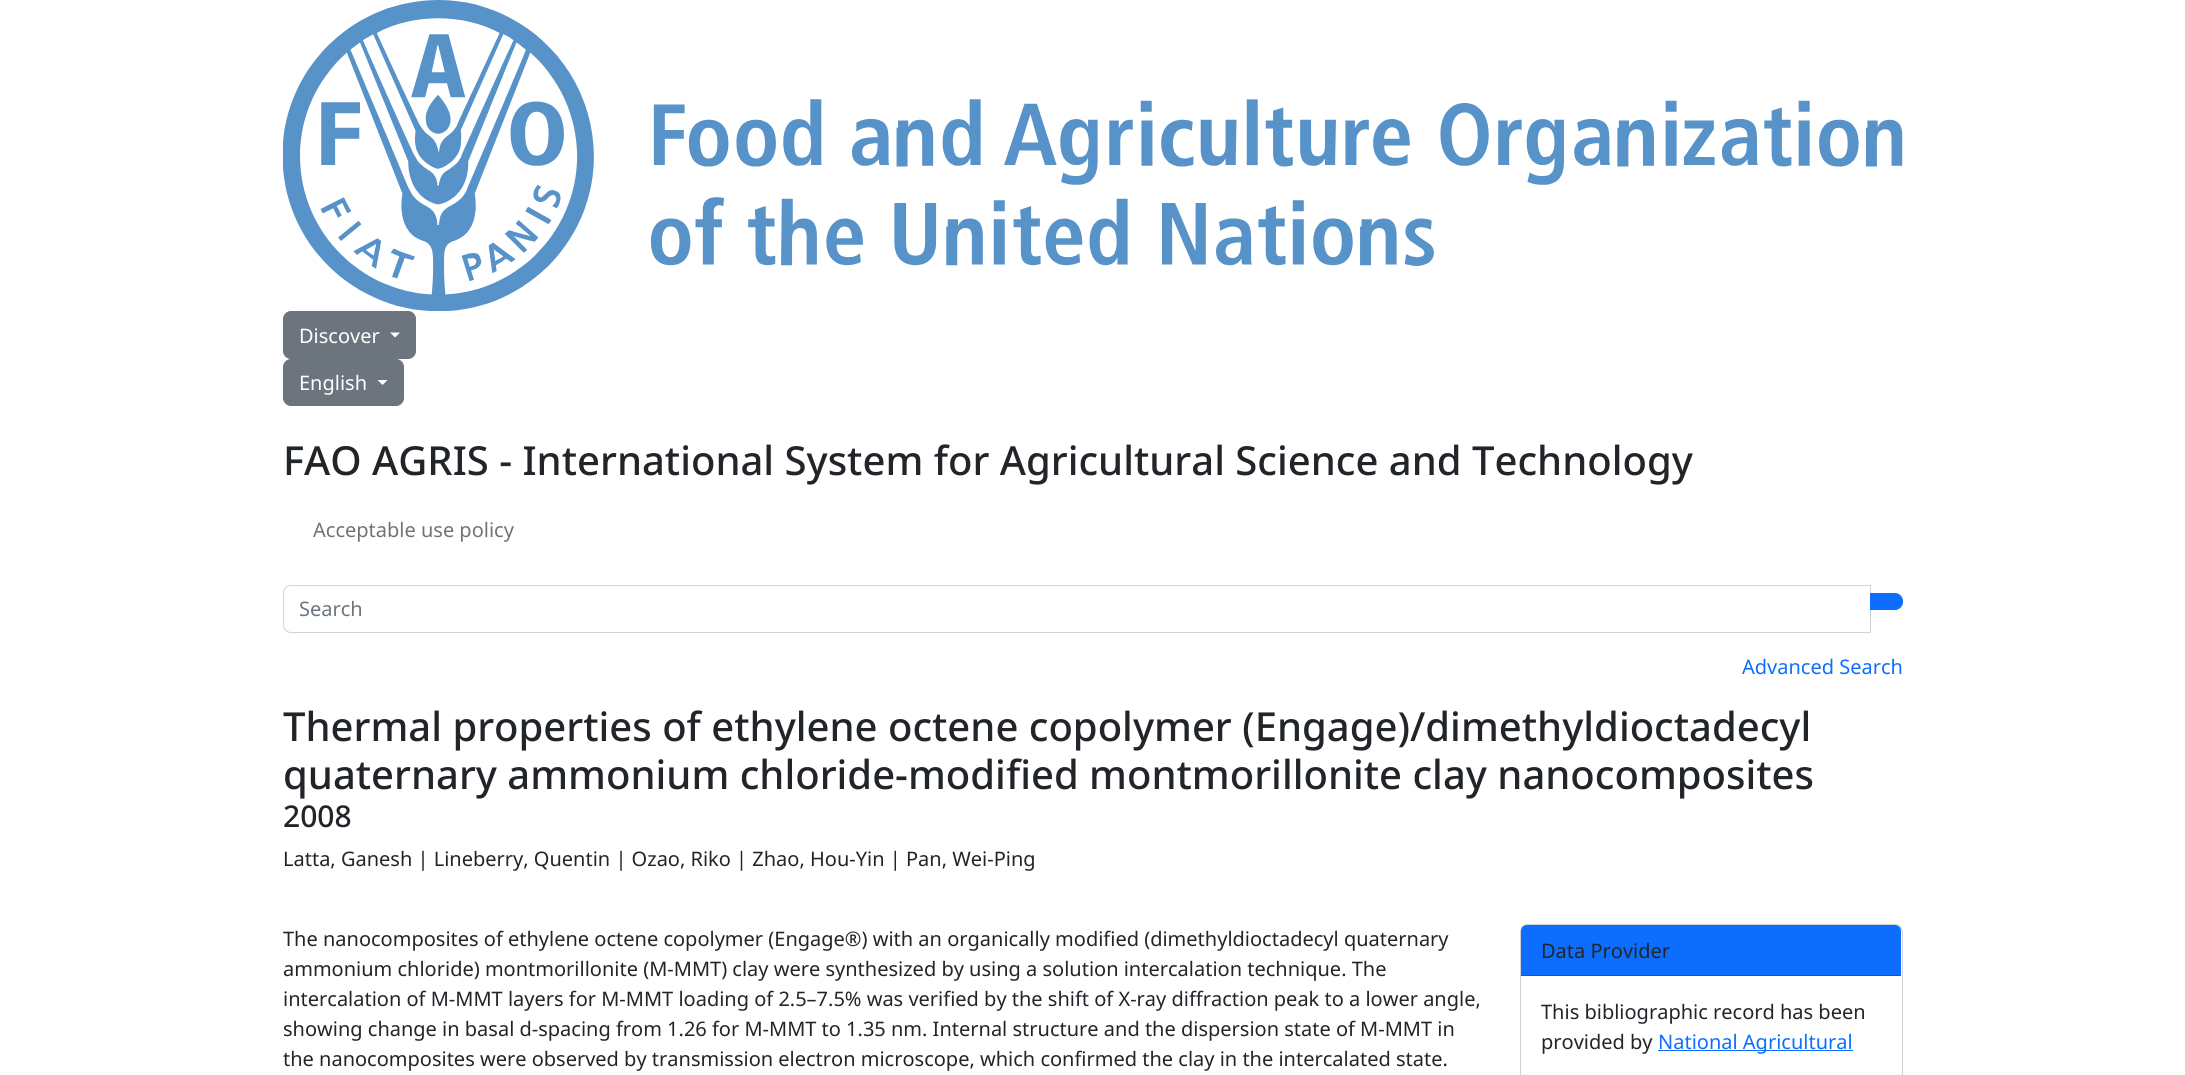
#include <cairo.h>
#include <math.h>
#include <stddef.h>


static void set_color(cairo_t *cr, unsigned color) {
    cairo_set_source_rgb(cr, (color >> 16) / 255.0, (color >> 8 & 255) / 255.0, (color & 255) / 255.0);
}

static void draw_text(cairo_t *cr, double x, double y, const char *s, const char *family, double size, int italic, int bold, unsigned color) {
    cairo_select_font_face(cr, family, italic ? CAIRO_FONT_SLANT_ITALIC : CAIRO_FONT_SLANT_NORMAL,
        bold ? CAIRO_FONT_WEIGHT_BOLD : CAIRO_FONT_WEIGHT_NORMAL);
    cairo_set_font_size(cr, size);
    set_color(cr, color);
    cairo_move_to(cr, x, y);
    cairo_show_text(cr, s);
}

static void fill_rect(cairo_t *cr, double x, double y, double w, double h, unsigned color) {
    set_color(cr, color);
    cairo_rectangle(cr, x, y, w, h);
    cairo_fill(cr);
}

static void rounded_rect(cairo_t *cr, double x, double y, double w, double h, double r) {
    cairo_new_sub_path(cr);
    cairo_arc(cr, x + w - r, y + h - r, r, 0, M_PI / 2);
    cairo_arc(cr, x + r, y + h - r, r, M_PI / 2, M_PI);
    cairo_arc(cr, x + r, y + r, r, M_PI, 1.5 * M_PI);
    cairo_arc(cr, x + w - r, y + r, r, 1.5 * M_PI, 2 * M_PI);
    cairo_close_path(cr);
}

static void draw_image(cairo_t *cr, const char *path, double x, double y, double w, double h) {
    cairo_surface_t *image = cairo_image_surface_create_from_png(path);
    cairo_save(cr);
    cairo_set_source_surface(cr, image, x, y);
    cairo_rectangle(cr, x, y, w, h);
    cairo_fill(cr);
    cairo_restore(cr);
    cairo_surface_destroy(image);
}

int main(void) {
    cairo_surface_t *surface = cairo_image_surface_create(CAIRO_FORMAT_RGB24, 2185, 1075);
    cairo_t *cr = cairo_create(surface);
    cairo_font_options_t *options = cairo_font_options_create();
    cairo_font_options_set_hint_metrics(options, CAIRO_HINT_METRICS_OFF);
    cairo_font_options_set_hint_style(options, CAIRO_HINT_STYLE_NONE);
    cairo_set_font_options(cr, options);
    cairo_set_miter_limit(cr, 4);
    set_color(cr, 0xFFFFFF);
    cairo_paint(cr);
    draw_image(cr, "assets/img1.png", 283, 0, 1620, 311);
    set_color(cr, 0x6C757D);
    rounded_rect(cr, 283.5, 311.5, 132, 47, 7.5);
    cairo_fill_preserve(cr);
    cairo_set_line_width(cr, 1);
    cairo_stroke(cr);
    draw_text(cr, 299, 343, "Discover", "Noto Sans", 20, 0, 0, 0xFFFFFF);
    cairo_new_path(cr);
    cairo_move_to(cr, 390, 332.5);
    cairo_line_to(cr, 400, 332.5);
    cairo_line_to(cr, 395, 337.5);
    cairo_close_path(cr);
    cairo_fill(cr);
    set_color(cr, 0x6C757D);
    rounded_rect(cr, 283.5, 359.5, 120, 46, 7.5);
    cairo_fill_preserve(cr);
    cairo_stroke(cr);
    draw_text(cr, 299, 390, "English", "Noto Sans", 20, 0, 0, 0xFFFFFF);
    cairo_new_path(cr);
    cairo_move_to(cr, 377.5, 380);
    cairo_line_to(cr, 387.5, 380);
    cairo_line_to(cr, 382.5, 385);
    cairo_close_path(cr);
    cairo_fill(cr);
    draw_text(cr, 283, 475, "FAO AGRIS - International System for Agricultural Science and Technology", "Noto Sans Medium", 40, 0, 0, 0x212529);
    draw_text(cr, 313, 537, "Acceptable use policy", "Noto Sans", 20, 0, 0, 0x737373);
    cairo_new_path(cr);
    cairo_move_to(cr, 291, 585.5);
    cairo_line_to(cr, 1870.5, 585.5);
    cairo_line_to(cr, 1870.5, 632.5);
    cairo_line_to(cr, 291, 632.5);
    cairo_curve_to(cr, 287, 632.5, 283.5, 629, 283.5, 625);
    cairo_line_to(cr, 283.5, 593);
    cairo_curve_to(cr, 283.5, 589, 287, 585.5, 291, 585.5);
    cairo_close_path(cr);
    set_color(cr, 0xCED4DA);
    cairo_stroke(cr);
    draw_text(cr, 299, 616, "Search", "Noto Sans", 20, 0, 0, 0x6C757D);
    set_color(cr, 0x0D6EFD);
    cairo_new_path(cr);
    cairo_move_to(cr, 1870.5, 593.5);
    cairo_line_to(cr, 1895, 593.5);
    cairo_curve_to(cr, 1899, 593.5, 1902.5, 597, 1902.5, 601);
    cairo_line_to(cr, 1902.5, 602);
    cairo_curve_to(cr, 1902.5, 606, 1899, 609.5, 1895, 609.5);
    cairo_line_to(cr, 1870.5, 609.5);
    cairo_close_path(cr);
    cairo_fill_preserve(cr);
    cairo_stroke(cr);
    draw_text(cr, 1742, 674, "Advanced Search", "Noto Sans", 20, 0, 0, 0x0D6EFD);
    draw_text(cr, 283, 741, "Thermal properties of ethylene octene copolymer (Engage)/dimethyldioctadecyl", "Noto Sans Medium", 40, 0, 0, 0x212529);
    draw_text(cr, 283, 789, "quaternary ammonium chloride-modified montmorillonite clay nanocomposites", "Noto Sans Medium", 40, 0, 0, 0x212529);
    draw_text(cr, 283, 827, "2008", "Noto Sans Medium", 30, 0, 0, 0x212529);
    draw_text(cr, 283, 866, "Latta, Ganesh | Lineberry, Quentin | Ozao, Riko | Zhao, Hou-Yin | Pan, Wei-Ping", "Noto Sans", 20, 0, 0, 0x212529);
    draw_text(cr, 283, 946, "The nanocomposites of ethylene octene copolymer (Engage®) with an organically modified (dimethyldioctadecyl quaternary", "Noto Sans", 20, 0, 0, 0x212529);
    draw_text(cr, 283, 976, "ammonium chloride) montmorillonite (M-MMT) clay were synthesized by using a solution intercalation technique. The", "Noto Sans", 20, 0, 0, 0x212529);
    draw_text(cr, 283, 1006, "intercalation of M-MMT layers for M-MMT loading of 2.5–7.5% was verified by the shift of X-ray diffraction peak to a lower angle,", "Noto Sans", 20, 0, 0, 0x212529);
    draw_text(cr, 283, 1036, "showing change in basal d-spacing from 1.26 for M-MMT to 1.35 nm. Internal structure and the dispersion state of M-MMT in", "Noto Sans", 20, 0, 0, 0x212529);
    draw_text(cr, 283, 1066, "the nanocomposites were observed by transmission electron microscope, which confirmed the clay in the intercalated state.", "Noto Sans", 20, 0, 0, 0x212529);
    rounded_rect(cr, 1520.5, 924.5, 382, 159, 7.5);
    set_color(cr, 0xD2D2D2);
    cairo_stroke(cr);
    set_color(cr, 0x0D6EFD);
    cairo_new_path(cr);
    cairo_move_to(cr, 1527, 925);
    cairo_line_to(cr, 1895, 925);
    cairo_curve_to(cr, 1898.5, 925, 1901, 927.5, 1901, 931);
    cairo_line_to(cr, 1901, 976);
    cairo_line_to(cr, 1521, 976);
    cairo_line_to(cr, 1521, 931);
    cairo_curve_to(cr, 1521, 927.5, 1523.5, 925, 1527, 925);
    cairo_close_path(cr);
    cairo_fill(cr);
    fill_rect(cr, 1521, 975, 380, 1, 0x0B5BD0);
    draw_text(cr, 1541, 958, "Data Provider", "Noto Sans", 20, 0, 0, 0x212529);
    draw_text(cr, 1541, 1019, "This bibliographic record has been", "Noto Sans", 20, 0, 0, 0x212529);
    draw_text(cr, 1541, 1049, "provided by", "Noto Sans", 20, 0, 0, 0x212529);
    fill_rect(cr, 1658, 1050, 195, 1, 0x0D6EFD);
    draw_text(cr, 1658, 1049, "National Agricultural", "Noto Sans", 20, 0, 0, 0x0D6EFD);
    cairo_surface_write_to_png(surface, "output.png");
    cairo_font_options_destroy(options);
    cairo_destroy(cr);
    cairo_surface_destroy(surface);
    return 0;
}
